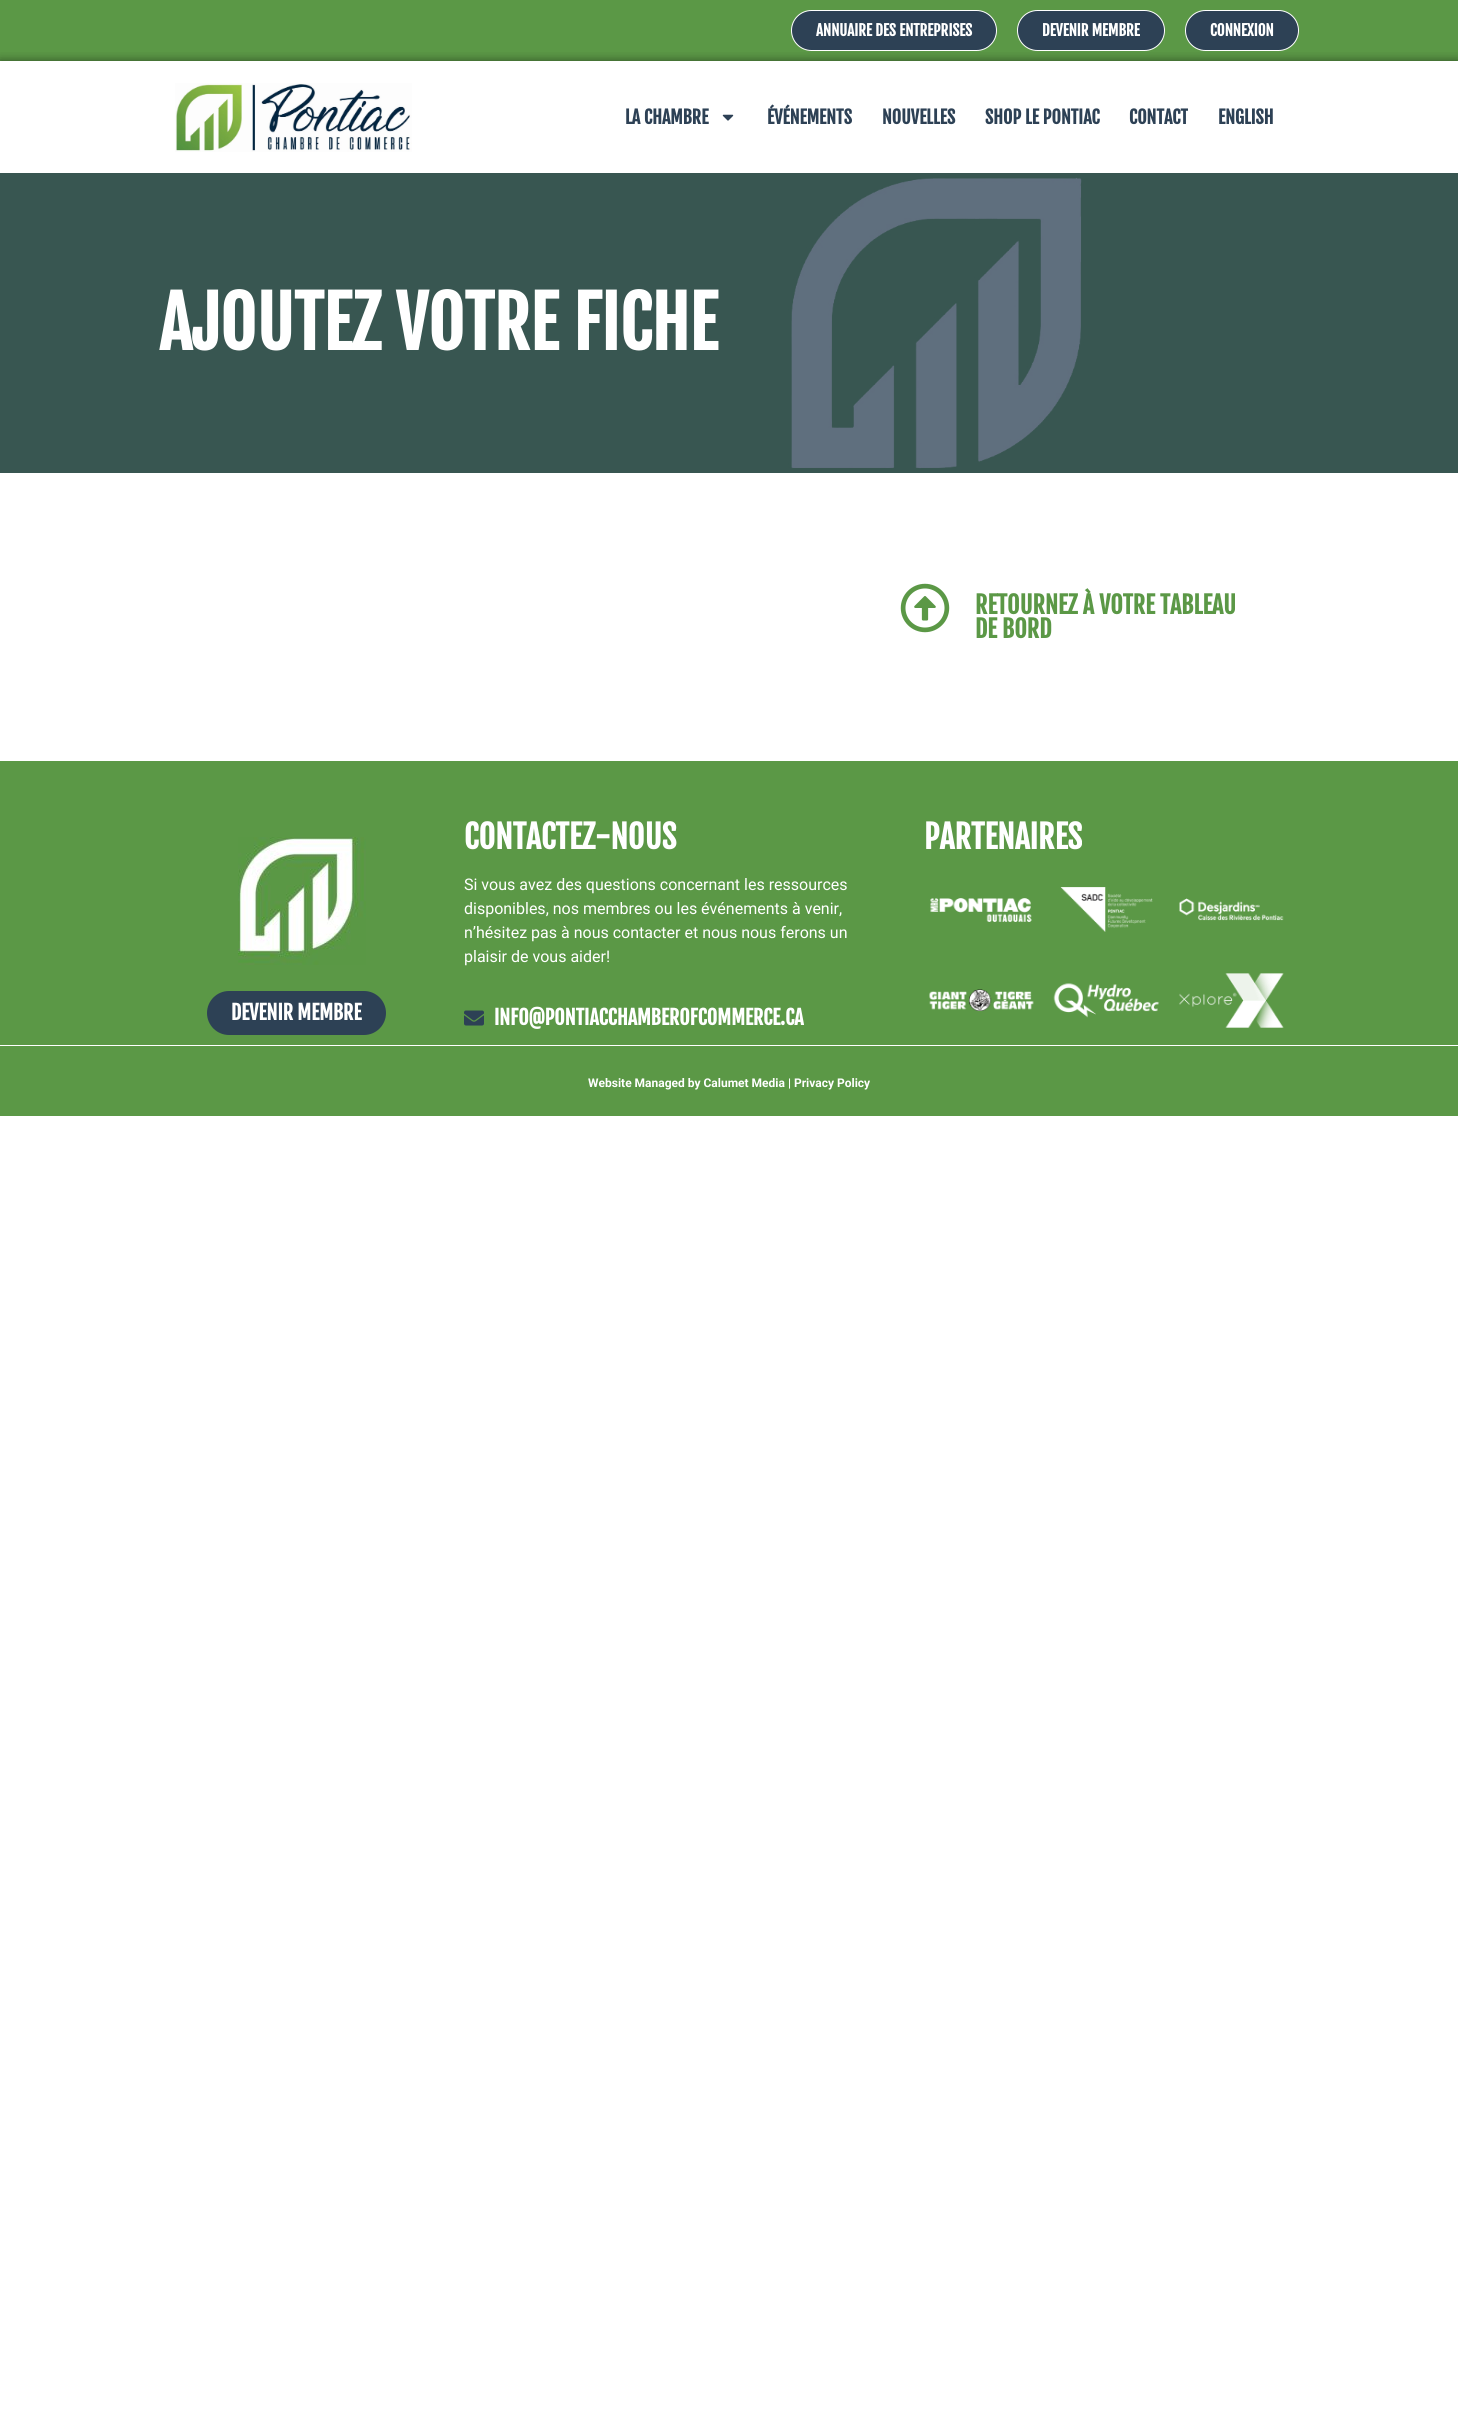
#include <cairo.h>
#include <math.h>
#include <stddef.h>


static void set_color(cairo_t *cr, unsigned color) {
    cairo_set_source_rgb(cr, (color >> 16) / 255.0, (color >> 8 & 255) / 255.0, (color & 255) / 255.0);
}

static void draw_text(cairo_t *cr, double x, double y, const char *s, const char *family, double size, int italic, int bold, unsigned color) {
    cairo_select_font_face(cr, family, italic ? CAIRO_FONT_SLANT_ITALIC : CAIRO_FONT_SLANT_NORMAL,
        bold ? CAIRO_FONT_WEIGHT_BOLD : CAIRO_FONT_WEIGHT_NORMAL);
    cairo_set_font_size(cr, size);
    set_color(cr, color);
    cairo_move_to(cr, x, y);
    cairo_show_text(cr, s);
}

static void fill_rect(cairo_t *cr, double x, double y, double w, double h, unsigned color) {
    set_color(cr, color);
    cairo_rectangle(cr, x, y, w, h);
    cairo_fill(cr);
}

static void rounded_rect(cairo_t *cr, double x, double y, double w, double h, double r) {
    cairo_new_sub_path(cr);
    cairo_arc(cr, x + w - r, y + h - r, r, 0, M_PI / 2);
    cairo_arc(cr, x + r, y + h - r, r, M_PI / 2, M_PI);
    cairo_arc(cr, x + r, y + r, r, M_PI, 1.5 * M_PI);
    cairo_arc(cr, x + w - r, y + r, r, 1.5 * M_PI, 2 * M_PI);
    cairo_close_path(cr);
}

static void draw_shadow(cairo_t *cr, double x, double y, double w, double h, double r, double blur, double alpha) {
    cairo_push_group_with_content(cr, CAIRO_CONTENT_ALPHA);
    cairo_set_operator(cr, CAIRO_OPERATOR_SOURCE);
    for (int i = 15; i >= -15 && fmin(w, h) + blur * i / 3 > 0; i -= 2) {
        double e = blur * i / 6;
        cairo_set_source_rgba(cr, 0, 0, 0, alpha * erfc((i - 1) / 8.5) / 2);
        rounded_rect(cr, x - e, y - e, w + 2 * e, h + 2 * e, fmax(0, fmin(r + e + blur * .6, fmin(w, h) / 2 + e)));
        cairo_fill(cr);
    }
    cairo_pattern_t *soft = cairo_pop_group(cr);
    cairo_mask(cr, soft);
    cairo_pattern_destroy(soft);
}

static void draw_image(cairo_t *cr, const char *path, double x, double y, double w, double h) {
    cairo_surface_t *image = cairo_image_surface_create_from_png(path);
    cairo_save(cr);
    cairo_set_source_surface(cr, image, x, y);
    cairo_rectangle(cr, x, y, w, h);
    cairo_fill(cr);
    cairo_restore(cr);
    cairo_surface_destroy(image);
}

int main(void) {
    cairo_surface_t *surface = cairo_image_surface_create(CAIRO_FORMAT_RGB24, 1458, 2410);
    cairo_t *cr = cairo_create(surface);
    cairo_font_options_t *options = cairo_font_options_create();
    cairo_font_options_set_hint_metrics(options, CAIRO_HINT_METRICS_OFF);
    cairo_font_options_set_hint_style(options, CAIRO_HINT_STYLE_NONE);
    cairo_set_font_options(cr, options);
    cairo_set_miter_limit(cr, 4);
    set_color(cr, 0xFFFFFF);
    cairo_paint(cr);
    fill_rect(cr, 0, 0, 1458, 61, 0x5B9846);
    set_color(cr, 0x2D4155);
    rounded_rect(cr, 791.5, 10.5, 205, 40, 20);
    cairo_fill_preserve(cr);
    set_color(cr, 0xFFFFFF);
    cairo_set_line_width(cr, 1);
    cairo_stroke(cr);
    draw_text(cr, 816, 36, "ANNUAIRE DES ENTREPRISES", "Fjalla One", 15, 0, 1, 0xFFFFFF);
    set_color(cr, 0x2D4155);
    rounded_rect(cr, 1017.5, 10.5, 147, 40, 20);
    cairo_fill_preserve(cr);
    set_color(cr, 0xFFFFFF);
    cairo_stroke(cr);
    draw_text(cr, 1042, 36, "DEVENIR MEMBRE", "Fjalla One", 15, 0, 1, 0xFFFFFF);
    set_color(cr, 0x2D4155);
    rounded_rect(cr, 1185.5, 10.5, 113, 40, 20);
    cairo_fill_preserve(cr);
    set_color(cr, 0xFFFFFF);
    cairo_stroke(cr);
    draw_text(cr, 1210, 36, "CONNEXION", "Fjalla One", 15, 0, 1, 0xFFFFFF);
    cairo_save(cr);
    cairo_rectangle(cr, 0, 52, 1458, 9);
    cairo_clip(cr);
    set_color(cr, 0x000000);
    draw_shadow(cr, 0, 61, 1458, 112, 0, 5, 0.5);
    cairo_restore(cr);
    draw_image(cr, "assets/img1.png", 175, 83, 237, 69);
    draw_text(cr, 625, 124, "LA CHAMBRE", "Fjalla One", 18, 0, 1, 0x2D4155);
    draw_image(cr, "assets/img2.png", 722, 114, 12, 7);
    draw_text(cr, 767, 124, "ÉVÉNEMENTS", "Fjalla One", 18, 0, 1, 0x2D4155);
    draw_text(cr, 882, 124, "NOUVELLES", "Fjalla One", 18, 0, 1, 0x2D4155);
    draw_text(cr, 985, 124, "SHOP LE PONTIAC", "Fjalla One", 18, 0, 1, 0x2D4155);
    draw_text(cr, 1129, 124, "CONTACT", "Fjalla One", 18, 0, 1, 0x2D4155);
    draw_text(cr, 1218, 124, "ENGLISH", "Fjalla One", 18, 0, 1, 0x2D4155);
    draw_image(cr, "assets/img3.png", 0, 173, 1458, 300);
    draw_text(cr, 159, 350, "AJOUTEZ VOTRE FICHE", "Fjalla One", 70, 0, 1, 0xFFFFFF);
    draw_image(cr, "assets/img4.png", 900, 583, 50, 50);
    draw_text(cr, 975, 614, "RETOURNEZ À VOTRE TABLEAU", "Fjalla One", 24, 0, 1, 0x5B9846);
    draw_text(cr, 975, 638, "DE BORD", "Fjalla One", 24, 0, 1, 0x5B9846);
    fill_rect(cr, 0, 761, 1458, 355, 0x5B9846);
    draw_text(cr, 464, 849, "CONTACTEZ-NOUS", "Fjalla One", 32, 0, 1, 0xFFFFFF);
    draw_text(cr, 464, 890, "Si vous avez des questions concernant les ressources", "Roboto", 16, 0, 0, 0xFFFFFF);
    draw_text(cr, 464, 914, "disponibles, nos membres ou les événements à venir,", "Roboto", 16, 0, 0, 0xFFFFFF);
    draw_text(cr, 464, 938, "n’hésitez pas à nous contacter et nous nous ferons un", "Roboto", 16, 0, 0, 0xFFFFFF);
    draw_text(cr, 464, 962, "plaisir de vous aider!", "Roboto", 16, 0, 0, 0xFFFFFF);
    draw_image(cr, "assets/img5.png", 464, 1010, 20, 16);
    draw_text(cr, 494, 1025, "INFO@PONTIACCHAMBEROFCOMMERCE.CA", "Fjalla One", 20, 0, 1, 0xFFFFFF);
    draw_text(cr, 924, 849, "PARTENAIRES", "Fjalla One", 32, 0, 1, 0xFFFFFF);
    draw_image(cr, "assets/img6.png", 930, 898, 102, 24);
    draw_image(cr, "assets/img7.png", 1060, 887, 93, 45);
    draw_image(cr, "assets/img8.png", 1179, 898, 105, 23);
    draw_image(cr, "assets/img9.png", 929, 989, 105, 22);
    draw_image(cr, "assets/img10.png", 1053, 983, 107, 35);
    draw_image(cr, "assets/img11.png", 1179, 973, 105, 55);
    draw_image(cr, "assets/img12.png", 238, 837, 128, 128);
    set_color(cr, 0x2D4155);
    rounded_rect(cr, 207, 991, 179, 44, 22);
    cairo_fill(cr);
    draw_text(cr, 231, 1020, "DEVENIR MEMBRE", "Fjalla One", 20, 0, 1, 0xFFFFFF);
    fill_rect(cr, 0, 1045, 1458, 1, 0xFFFFFF);
    draw_text(cr, 588, 1087, "Website Managed by Calumet Media | Privacy Policy", "Roboto", 12, 0, 1, 0xFFFFFF);
    cairo_surface_write_to_png(surface, "output.png");
    cairo_font_options_destroy(options);
    cairo_destroy(cr);
    cairo_surface_destroy(surface);
    return 0;
}
